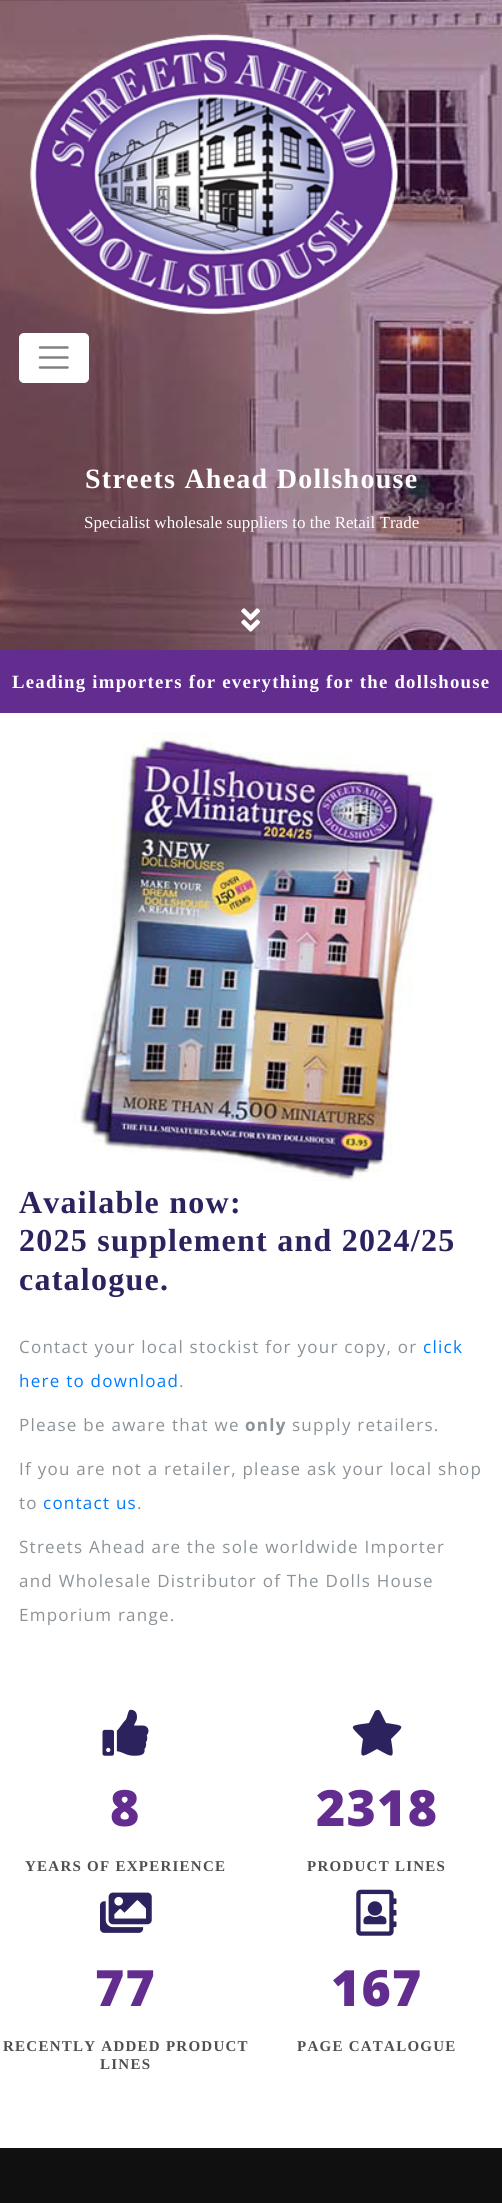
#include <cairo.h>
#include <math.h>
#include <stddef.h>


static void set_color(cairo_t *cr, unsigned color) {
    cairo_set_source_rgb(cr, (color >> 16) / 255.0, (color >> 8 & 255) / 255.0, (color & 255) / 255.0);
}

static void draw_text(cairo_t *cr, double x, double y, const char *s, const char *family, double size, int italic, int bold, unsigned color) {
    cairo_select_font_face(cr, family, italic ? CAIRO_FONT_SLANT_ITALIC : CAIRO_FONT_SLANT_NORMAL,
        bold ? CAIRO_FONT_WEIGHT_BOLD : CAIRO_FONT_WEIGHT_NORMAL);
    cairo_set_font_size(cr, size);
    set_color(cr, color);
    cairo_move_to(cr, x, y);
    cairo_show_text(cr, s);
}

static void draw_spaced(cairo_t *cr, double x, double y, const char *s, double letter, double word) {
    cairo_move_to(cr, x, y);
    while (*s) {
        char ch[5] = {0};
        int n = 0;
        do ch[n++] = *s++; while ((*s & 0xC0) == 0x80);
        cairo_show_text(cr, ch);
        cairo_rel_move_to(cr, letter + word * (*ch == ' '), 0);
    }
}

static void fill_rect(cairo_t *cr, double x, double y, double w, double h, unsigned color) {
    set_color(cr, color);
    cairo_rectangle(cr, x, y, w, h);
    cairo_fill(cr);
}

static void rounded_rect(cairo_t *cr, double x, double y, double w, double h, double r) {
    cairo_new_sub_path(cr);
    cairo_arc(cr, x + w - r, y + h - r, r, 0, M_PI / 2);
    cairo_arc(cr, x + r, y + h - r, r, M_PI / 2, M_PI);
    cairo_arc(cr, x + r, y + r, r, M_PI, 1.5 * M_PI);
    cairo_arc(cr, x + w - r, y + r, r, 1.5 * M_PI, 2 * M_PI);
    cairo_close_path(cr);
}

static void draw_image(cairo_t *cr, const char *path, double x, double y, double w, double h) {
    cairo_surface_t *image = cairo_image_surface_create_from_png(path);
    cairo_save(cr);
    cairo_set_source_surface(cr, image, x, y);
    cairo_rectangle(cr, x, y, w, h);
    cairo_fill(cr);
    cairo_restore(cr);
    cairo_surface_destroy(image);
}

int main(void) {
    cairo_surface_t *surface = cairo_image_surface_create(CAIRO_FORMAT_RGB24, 502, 2203);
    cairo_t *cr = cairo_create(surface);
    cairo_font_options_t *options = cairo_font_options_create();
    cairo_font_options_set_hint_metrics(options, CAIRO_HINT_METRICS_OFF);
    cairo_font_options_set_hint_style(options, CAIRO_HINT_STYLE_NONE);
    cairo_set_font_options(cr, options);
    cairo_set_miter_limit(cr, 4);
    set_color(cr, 0xFFFFFF);
    cairo_paint(cr);
    draw_image(cr, "assets/img1.png", 0, 0, 502, 650);
    draw_image(cr, "assets/img2.png", 29, 33, 369, 282);
    set_color(cr, 0xFFFFFF);
    rounded_rect(cr, 19.5, 333.5, 69, 49, 4.5);
    cairo_fill_preserve(cr);
    cairo_set_line_width(cr, 1);
    cairo_stroke(cr);
    cairo_new_path(cr);
    cairo_move_to(cr, 40, 347.5);
    cairo_line_to(cr, 67.5, 347.5);
    cairo_move_to(cr, 40, 357.5);
    cairo_line_to(cr, 67.5, 357.5);
    cairo_move_to(cr, 40, 367.5);
    cairo_line_to(cr, 67.5, 367.5);
    set_color(cr, 0x808080);
    cairo_set_line_width(cr, 2.5);
    cairo_set_line_cap(cr, CAIRO_LINE_CAP_ROUND);
    cairo_stroke(cr);
    cairo_select_font_face(cr, "Liberation Serif", CAIRO_FONT_SLANT_NORMAL, CAIRO_FONT_WEIGHT_BOLD);
    cairo_set_font_size(cr, 28);
    set_color(cr, 0xFFFFFF);
    draw_spaced(cr, 85, 488, "Streets Ahead Dollshouse", 1.25, 0);
    draw_text(cr, 84, 528, "Specialist wholesale suppliers to the Retail Trade", "Liberation Serif", 17, 0, 0, 0xFFFFFF);
    draw_image(cr, "assets/img3.png", 241, 608, 19, 24);
    fill_rect(cr, 0, 650, 502, 63, 0x632D90);
    cairo_select_font_face(cr, "Liberation Serif", CAIRO_FONT_SLANT_NORMAL, CAIRO_FONT_WEIGHT_BOLD);
    cairo_set_font_size(cr, 18.75);
    set_color(cr, 0xFFFFFF);
    draw_spaced(cr, 12, 688, "Leading importers for everything for the dollshouse", 1.25, 0);
    draw_image(cr, "assets/img4.png", 73, 732, 362, 449);
    cairo_set_font_size(cr, 32);
    set_color(cr, 0x2C235E);
    draw_spaced(cr, 19, 1213, "Available now:", 1.25, 0);
    draw_spaced(cr, 19, 1251, "2025 supplement and 2024/25", 1.25, 0);
    draw_spaced(cr, 19, 1290, "catalogue.", 1.25, 0);
    cairo_select_font_face(cr, "Open Sans", CAIRO_FONT_SLANT_NORMAL, CAIRO_FONT_WEIGHT_NORMAL);
    cairo_set_font_size(cr, 17);
    set_color(cr, 0x8C9398);
    draw_spaced(cr, 19, 1353, "Contact your local stockist for your copy, or", 1.25, 0);
    set_color(cr, 0x007BFF);
    draw_spaced(cr, 423, 1353, "click", 1.25, 0);
    draw_spaced(cr, 19, 1387, "here to download", 1.25, 0);
    set_color(cr, 0x8C9398);
    draw_spaced(cr, 179, 1387, ".", 1.25, 0);
    draw_spaced(cr, 19, 1431, "Please be aware that we", 1.25, 0);
    cairo_select_font_face(cr, "Open Sans", CAIRO_FONT_SLANT_NORMAL, CAIRO_FONT_WEIGHT_BOLD);
    draw_spaced(cr, 245, 1431, "only", 1.25, 0);
    cairo_select_font_face(cr, "Open Sans", CAIRO_FONT_SLANT_NORMAL, CAIRO_FONT_WEIGHT_NORMAL);
    draw_spaced(cr, 292, 1431, "supply retailers.", 1.25, 0);
    draw_spaced(cr, 19, 1475, "If you are not a retailer, please ask your local shop", 1.25, 0);
    draw_spaced(cr, 19, 1509, "to", 1.25, 0);
    set_color(cr, 0x007BFF);
    draw_spaced(cr, 43, 1509, "contact us", 1.25, 0);
    set_color(cr, 0x8C9398);
    draw_spaced(cr, 137, 1509, ".", 1.25, 0);
    draw_spaced(cr, 19, 1553, "Streets Ahead are the sole worldwide Importer", 1.25, 0);
    draw_spaced(cr, 19, 1587, "and Wholesale Distributor of The Dolls House", 1.25, 0);
    draw_spaced(cr, 19, 1621, "Emporium range.", 1.25, 0);
    draw_image(cr, "assets/img5.png", 102, 1709, 47, 47);
    cairo_select_font_face(cr, "Open Sans ExtraBold", CAIRO_FONT_SLANT_NORMAL, CAIRO_FONT_WEIGHT_NORMAL);
    cairo_set_font_size(cr, 50);
    set_color(cr, 0x632D90);
    draw_spaced(cr, 110, 1826, "8", 1.25, 0);
    cairo_select_font_face(cr, "Liberation Serif", CAIRO_FONT_SLANT_NORMAL, CAIRO_FONT_WEIGHT_BOLD);
    cairo_set_font_size(cr, 15);
    set_color(cr, 0x4F4F50);
    draw_spaced(cr, 25, 1871, "YEARS OF EXPERIENCE", 1.25, 0);
    set_color(cr, 0x2C235E);
    cairo_new_path(cr);
    cairo_move_to(cr, 375, 1711);
    cairo_line_to(cr, 369, 1723);
    cairo_curve_to(cr, 348, 1726, 349, 1725, 363, 1739);
    cairo_curve_to(cr, 360, 1759, 359, 1759, 377, 1749);
    cairo_curve_to(cr, 395, 1759, 394, 1759, 391, 1739);
    cairo_curve_to(cr, 405, 1725, 406, 1726, 386, 1723);
    cairo_line_to(cr, 382, 1715);
    cairo_curve_to(cr, 381, 1713, 380, 1709, 377, 1710);
    cairo_close_path(cr);
    cairo_fill(cr);
    cairo_select_font_face(cr, "Open Sans ExtraBold", CAIRO_FONT_SLANT_NORMAL, CAIRO_FONT_WEIGHT_NORMAL);
    cairo_set_font_size(cr, 50);
    set_color(cr, 0x632D90);
    draw_spaced(cr, 316, 1826, "2318", 1.25, 0);
    cairo_select_font_face(cr, "Liberation Serif", CAIRO_FONT_SLANT_NORMAL, CAIRO_FONT_WEIGHT_BOLD);
    cairo_set_font_size(cr, 15);
    set_color(cr, 0x4F4F50);
    draw_spaced(cr, 307, 1871, "PRODUCT LINES", 1.25, 0);
    draw_image(cr, "assets/img6.png", 100, 1892, 52, 41);
    cairo_select_font_face(cr, "Open Sans ExtraBold", CAIRO_FONT_SLANT_NORMAL, CAIRO_FONT_WEIGHT_NORMAL);
    cairo_set_font_size(cr, 50);
    set_color(cr, 0x632D90);
    draw_spaced(cr, 95, 2006, "77", 1.25, 0);
    cairo_select_font_face(cr, "Liberation Serif", CAIRO_FONT_SLANT_NORMAL, CAIRO_FONT_WEIGHT_BOLD);
    cairo_set_font_size(cr, 15);
    set_color(cr, 0x4F4F50);
    draw_spaced(cr, 3, 2051, "RECENTLY ADDED PRODUCT", 1.25, 0);
    draw_spaced(cr, 100, 2069, "LINES", 1.25, 0);
    draw_image(cr, "assets/img7.png", 356, 1889, 41, 47);
    cairo_select_font_face(cr, "Open Sans ExtraBold", CAIRO_FONT_SLANT_NORMAL, CAIRO_FONT_WEIGHT_NORMAL);
    cairo_set_font_size(cr, 50);
    set_color(cr, 0x632D90);
    draw_spaced(cr, 331, 2006, "167", 1.25, 0);
    cairo_select_font_face(cr, "Liberation Serif", CAIRO_FONT_SLANT_NORMAL, CAIRO_FONT_WEIGHT_BOLD);
    cairo_set_font_size(cr, 15);
    set_color(cr, 0x4F4F50);
    draw_spaced(cr, 297, 2051, "PAGE CATALOGUE", 1.25, 0);
    fill_rect(cr, 0, 2148, 502, 55, 0x101010);
    cairo_surface_write_to_png(surface, "output.png");
    cairo_font_options_destroy(options);
    cairo_destroy(cr);
    cairo_surface_destroy(surface);
    return 0;
}
